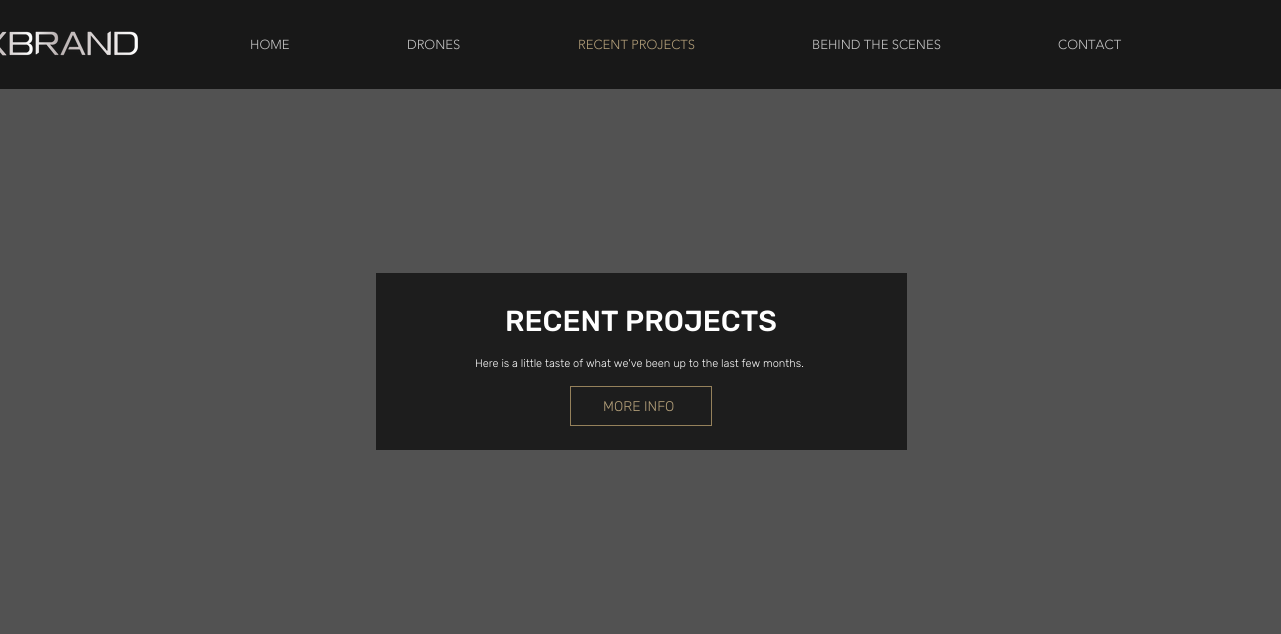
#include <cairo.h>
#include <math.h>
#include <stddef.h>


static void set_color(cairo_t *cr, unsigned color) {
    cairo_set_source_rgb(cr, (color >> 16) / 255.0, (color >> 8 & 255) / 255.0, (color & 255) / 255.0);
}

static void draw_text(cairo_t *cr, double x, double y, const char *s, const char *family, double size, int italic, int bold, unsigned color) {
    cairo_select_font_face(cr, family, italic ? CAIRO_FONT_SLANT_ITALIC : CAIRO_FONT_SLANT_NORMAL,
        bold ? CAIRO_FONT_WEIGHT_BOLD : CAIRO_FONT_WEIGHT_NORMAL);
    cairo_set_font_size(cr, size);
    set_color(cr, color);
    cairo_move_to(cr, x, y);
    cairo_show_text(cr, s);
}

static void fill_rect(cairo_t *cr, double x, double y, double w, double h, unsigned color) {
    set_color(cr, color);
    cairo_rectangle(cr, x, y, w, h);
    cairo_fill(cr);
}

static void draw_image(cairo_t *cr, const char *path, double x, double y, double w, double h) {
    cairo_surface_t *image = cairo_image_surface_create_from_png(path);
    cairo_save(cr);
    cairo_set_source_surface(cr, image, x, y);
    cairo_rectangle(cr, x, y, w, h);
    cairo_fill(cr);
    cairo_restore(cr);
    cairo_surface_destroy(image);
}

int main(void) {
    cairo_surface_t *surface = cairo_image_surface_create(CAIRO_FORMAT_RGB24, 1281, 634);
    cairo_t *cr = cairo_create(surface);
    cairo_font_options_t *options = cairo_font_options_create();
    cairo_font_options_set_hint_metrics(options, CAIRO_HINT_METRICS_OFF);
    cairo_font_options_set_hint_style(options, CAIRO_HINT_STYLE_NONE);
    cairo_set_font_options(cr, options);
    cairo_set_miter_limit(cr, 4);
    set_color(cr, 0x525252);
    cairo_paint(cr);
    fill_rect(cr, 0, 0, 1281, 89, 0x181818);
    draw_image(cr, "assets/img1.png", 0, 31, 138, 25);
    draw_text(cr, 250, 49, "HOME", "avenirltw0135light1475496 Light", 13, 0, 0, 0xC5C5C5);
    draw_text(cr, 407, 49, "DRONES", "avenirltw0135light1475496 Light", 13, 0, 0, 0xC5C5C5);
    draw_text(cr, 578, 49, "RECENT PROJECTS", "avenirltw0135light1475496 Light", 13, 0, 0, 0xB39F79);
    draw_text(cr, 812, 49, "BEHIND THE SCENES", "avenirltw0135light1475496 Light", 13, 0, 0, 0xC5C5C5);
    draw_text(cr, 1058, 49, "CONTACT", "avenirltw0135light1475496 Light", 13, 0, 0, 0xC5C5C5);
    fill_rect(cr, 376, 273, 531, 177, 0x1D1D1D);
    draw_text(cr, 505, 331, "RECENT PROJECTS", "Rubik Medium", 29, 0, 0, 0xFFFFFF);
    draw_text(cr, 475, 367, "Here is a little taste of what we've been up to the last few months.", "Rubik Light", 11, 0, 0, 0xFFFFFF);
    cairo_rectangle(cr, 570.5, 386.5, 141, 39);
    set_color(cr, 0x95815B);
    cairo_set_line_width(cr, 1);
    cairo_stroke(cr);
    draw_text(cr, 603, 411, "MORE INFO", "Rubik Light", 14, 0, 0, 0xB39F79);
    cairo_surface_write_to_png(surface, "output.png");
    cairo_font_options_destroy(options);
    cairo_destroy(cr);
    cairo_surface_destroy(surface);
    return 0;
}
